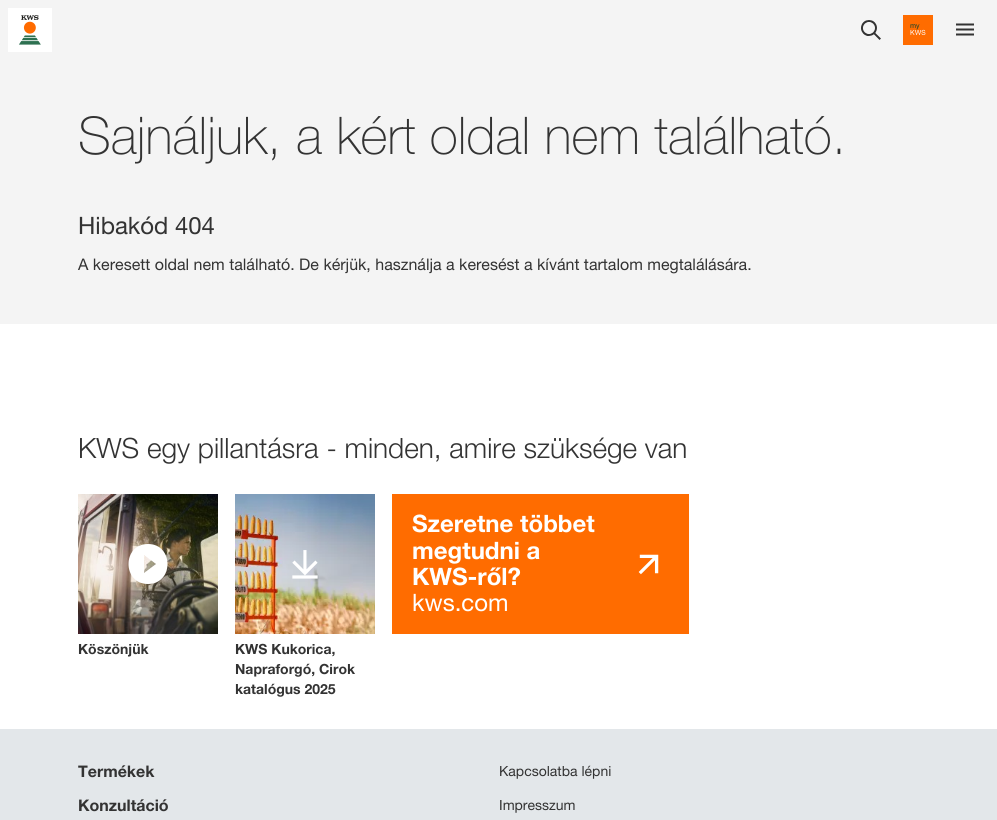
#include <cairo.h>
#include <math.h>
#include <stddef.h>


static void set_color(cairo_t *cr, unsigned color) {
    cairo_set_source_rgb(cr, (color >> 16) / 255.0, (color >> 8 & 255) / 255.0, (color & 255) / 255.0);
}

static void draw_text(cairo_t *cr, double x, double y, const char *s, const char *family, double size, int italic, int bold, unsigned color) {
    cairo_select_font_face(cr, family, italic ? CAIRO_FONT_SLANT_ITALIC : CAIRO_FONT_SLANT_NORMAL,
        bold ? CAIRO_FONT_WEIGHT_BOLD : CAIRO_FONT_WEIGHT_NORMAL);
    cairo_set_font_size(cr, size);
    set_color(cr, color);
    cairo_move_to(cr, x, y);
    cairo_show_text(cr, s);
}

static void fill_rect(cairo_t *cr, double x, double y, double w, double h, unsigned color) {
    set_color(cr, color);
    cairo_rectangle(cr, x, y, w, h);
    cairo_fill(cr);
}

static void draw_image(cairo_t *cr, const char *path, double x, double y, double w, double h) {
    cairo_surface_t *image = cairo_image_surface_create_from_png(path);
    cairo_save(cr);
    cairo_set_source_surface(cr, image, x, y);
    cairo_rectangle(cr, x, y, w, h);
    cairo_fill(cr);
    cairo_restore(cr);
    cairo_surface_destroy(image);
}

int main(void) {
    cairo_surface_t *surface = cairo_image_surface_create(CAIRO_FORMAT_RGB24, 997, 820);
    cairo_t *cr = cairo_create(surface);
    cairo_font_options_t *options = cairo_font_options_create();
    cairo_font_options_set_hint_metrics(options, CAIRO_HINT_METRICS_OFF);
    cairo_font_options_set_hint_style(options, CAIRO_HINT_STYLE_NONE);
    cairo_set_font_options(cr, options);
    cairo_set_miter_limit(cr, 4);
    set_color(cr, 0xF4F4F4);
    cairo_paint(cr);
    draw_image(cr, "assets/img1.png", 8, 8, 44, 44);
    draw_image(cr, "assets/img2.png", 861, 20, 20, 20);
    draw_image(cr, "assets/img3.png", 903, 15, 30, 30);
    draw_image(cr, "assets/img4.png", 956, 23, 18, 13);
    draw_text(cr, 78, 154, "Sajnáljuk, a kért oldal nem található.", "Helvetica Neue Thin", 52, 0, 0, 0x333333);
    draw_text(cr, 78, 234, "Hibakód 404", "Helvetica Neue", 24, 0, 0, 0x333333);
    draw_text(cr, 78, 270, "A keresett oldal nem található. De kérjük, használja a keresést a kívánt tartalom megtalálására.", "Helvetica Neue", 16, 0, 0, 0x333333);
    fill_rect(cr, 0, 324, 997, 405, 0xFFFFFF);
    draw_text(cr, 78, 458, "KWS egy pillantásra - minden, amire szüksége van", "Helvetica Neue Light", 28, 0, 0, 0x333333);
    fill_rect(cr, 392, 494, 297, 140, 0xFF6C00);
    draw_text(cr, 412, 532, "Szeretne többet", "Helvetica Neue", 24, 0, 1, 0xFFFFFF);
    draw_text(cr, 412, 559, "megtudni a", "Helvetica Neue", 24, 0, 1, 0xFFFFFF);
    draw_text(cr, 412, 585, "KWS-ről?", "Helvetica Neue", 24, 0, 1, 0xFFFFFF);
    draw_text(cr, 412, 611, "kws.com", "Helvetica Neue", 24, 0, 0, 0xFFFFFF);
    draw_image(cr, "assets/img5.png", 638, 554, 21, 21);
    draw_image(cr, "assets/img6.png", 78, 494, 140, 140);
    cairo_set_fill_rule(cr, CAIRO_FILL_RULE_EVEN_ODD);
    cairo_new_path(cr);
    cairo_move_to(cr, 144, 573);
    cairo_line_to(cr, 156, 564);
    cairo_line_to(cr, 144, 555);
    cairo_close_path(cr);
    cairo_move_to(cr, 148, 544);
    cairo_curve_to(cr, 174, 544, 174, 584, 148, 584);
    cairo_curve_to(cr, 122, 584, 122, 544, 148, 544);
    cairo_close_path(cr);
    cairo_fill(cr);
    draw_text(cr, 78, 654, "Köszönjük", "Helvetica Neue", 14, 0, 1, 0x333333);
    draw_image(cr, "assets/img7.png", 235, 494, 140, 140);
    draw_image(cr, "assets/img8.png", 292, 550, 26, 29);
    draw_text(cr, 235, 654, "KWS Kukorica,", "Helvetica Neue", 14, 0, 1, 0x333333);
    draw_text(cr, 235, 674, "Napraforgó, Cirok", "Helvetica Neue", 14, 0, 1, 0x333333);
    draw_text(cr, 235, 694, "katalógus 2025", "Helvetica Neue", 14, 0, 1, 0x333333);
    fill_rect(cr, 0, 729, 997, 91, 0xE3E7EA);
    draw_text(cr, 78, 777, "Termékek", "Helvetica Neue", 16, 0, 1, 0x333333);
    draw_text(cr, 78, 811, "Konzultáció", "Helvetica Neue", 16, 0, 1, 0x333333);
    draw_text(cr, 499, 776, "Kapcsolatba lépni", "Helvetica Neue", 14, 0, 0, 0x333333);
    draw_text(cr, 499, 810, "Impresszum", "Helvetica Neue", 14, 0, 0, 0x333333);
    cairo_surface_write_to_png(surface, "output.png");
    cairo_font_options_destroy(options);
    cairo_destroy(cr);
    cairo_surface_destroy(surface);
    return 0;
}
